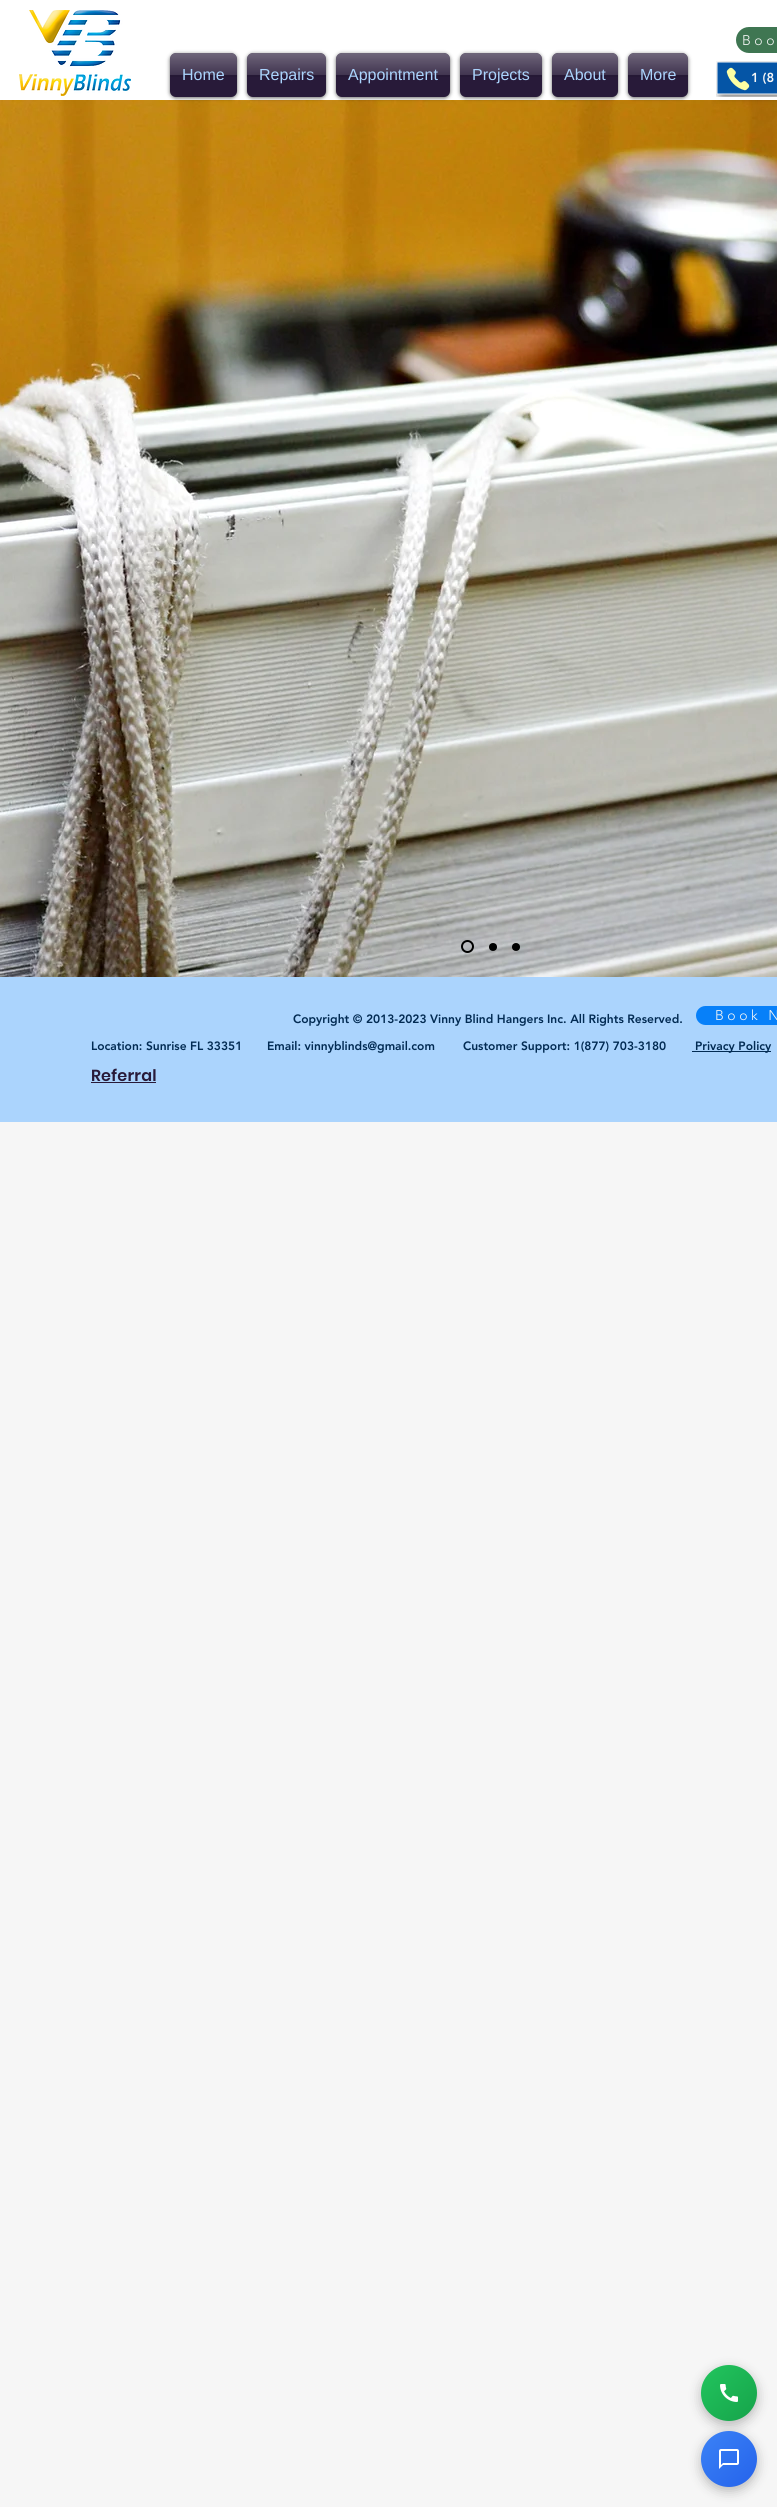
#include <cairo.h>
#include <math.h>
#include <stddef.h>


static void set_color(cairo_t *cr, unsigned color) {
    cairo_set_source_rgb(cr, (color >> 16) / 255.0, (color >> 8 & 255) / 255.0, (color & 255) / 255.0);
}

static void draw_text(cairo_t *cr, double x, double y, const char *s, const char *family, double size, int italic, int bold, unsigned color) {
    cairo_select_font_face(cr, family, italic ? CAIRO_FONT_SLANT_ITALIC : CAIRO_FONT_SLANT_NORMAL,
        bold ? CAIRO_FONT_WEIGHT_BOLD : CAIRO_FONT_WEIGHT_NORMAL);
    cairo_set_font_size(cr, size);
    set_color(cr, color);
    cairo_move_to(cr, x, y);
    cairo_show_text(cr, s);
}

static void draw_spaced(cairo_t *cr, double x, double y, const char *s, double letter, double word) {
    cairo_move_to(cr, x, y);
    while (*s) {
        char ch[5] = {0};
        int n = 0;
        do ch[n++] = *s++; while ((*s & 0xC0) == 0x80);
        cairo_show_text(cr, ch);
        cairo_rel_move_to(cr, letter + word * (*ch == ' '), 0);
    }
}

static void fill_rect(cairo_t *cr, double x, double y, double w, double h, unsigned color) {
    set_color(cr, color);
    cairo_rectangle(cr, x, y, w, h);
    cairo_fill(cr);
}

static void rounded_rect(cairo_t *cr, double x, double y, double w, double h, double r) {
    cairo_new_sub_path(cr);
    cairo_arc(cr, x + w - r, y + h - r, r, 0, M_PI / 2);
    cairo_arc(cr, x + r, y + h - r, r, M_PI / 2, M_PI);
    cairo_arc(cr, x + r, y + r, r, M_PI, 1.5 * M_PI);
    cairo_arc(cr, x + w - r, y + r, r, 1.5 * M_PI, 2 * M_PI);
    cairo_close_path(cr);
}

static void draw_shadow(cairo_t *cr, double x, double y, double w, double h, double r, double blur, double alpha) {
    cairo_push_group_with_content(cr, CAIRO_CONTENT_ALPHA);
    cairo_set_operator(cr, CAIRO_OPERATOR_SOURCE);
    for (int i = 15; i >= -15 && fmin(w, h) + blur * i / 3 > 0; i -= 2) {
        double e = blur * i / 6;
        cairo_set_source_rgba(cr, 0, 0, 0, alpha * erfc((i - 1) / 8.5) / 2);
        rounded_rect(cr, x - e, y - e, w + 2 * e, h + 2 * e, fmax(0, fmin(r + e + blur * .6, fmin(w, h) / 2 + e)));
        cairo_fill(cr);
    }
    cairo_pattern_t *soft = cairo_pop_group(cr);
    cairo_mask(cr, soft);
    cairo_pattern_destroy(soft);
}

static void draw_image(cairo_t *cr, const char *path, double x, double y, double w, double h) {
    cairo_surface_t *image = cairo_image_surface_create_from_png(path);
    cairo_save(cr);
    cairo_set_source_surface(cr, image, x, y);
    cairo_rectangle(cr, x, y, w, h);
    cairo_fill(cr);
    cairo_restore(cr);
    cairo_surface_destroy(image);
}

int main(void) {
    cairo_surface_t *surface = cairo_image_surface_create(CAIRO_FORMAT_RGB24, 777, 2507);
    cairo_t *cr = cairo_create(surface);
    cairo_font_options_t *options = cairo_font_options_create();
    cairo_font_options_set_hint_metrics(options, CAIRO_HINT_METRICS_OFF);
    cairo_font_options_set_hint_style(options, CAIRO_HINT_STYLE_NONE);
    cairo_set_font_options(cr, options);
    cairo_set_miter_limit(cr, 4);
    cairo_pattern_t *gradient;
    set_color(cr, 0xF6F6F6);
    cairo_paint(cr);
    fill_rect(cr, 0, 0, 777, 100, 0xFFFFFF);
    draw_image(cr, "assets/img1.png", 19, 10, 112, 86);
    set_color(cr, 0x3F7652);
    rounded_rect(cr, 736, 27, 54, 26, 13);
    cairo_fill(cr);
    cairo_select_font_face(cr, "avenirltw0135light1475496 Light", CAIRO_FONT_SLANT_NORMAL, CAIRO_FONT_WEIGHT_NORMAL);
    cairo_set_font_size(cr, 14);
    set_color(cr, 0xF6F6F6);
    draw_spaced(cr, 742, 45, "Boo", 3.5, 0);
    draw_image(cr, "assets/img10.png", 0, 100, 777, 877);
    set_color(cr, 0x000000);
    draw_shadow(cr, 170, 54, 67, 44, 6, 2, 0.6);
    set_color(cr, 0x281A39);
    rounded_rect(cr, 170, 53, 67, 44, 6);
    cairo_fill(cr);
    draw_image(cr, "assets/img2.png", 170, 53, 67, 24);
    draw_text(cr, 182, 80, "Home", "Liberation Sans", 16, 0, 0, 0xABD4FD);
    set_color(cr, 0x000000);
    draw_shadow(cr, 247, 54, 79, 44, 6, 2, 0.6);
    set_color(cr, 0x281A39);
    rounded_rect(cr, 247, 53, 79, 44, 6);
    cairo_fill(cr);
    draw_image(cr, "assets/img3.png", 247, 53, 79, 24);
    draw_text(cr, 259, 80, "Repairs", "Liberation Sans", 16, 0, 0, 0xABD4FD);
    set_color(cr, 0x000000);
    draw_shadow(cr, 336, 54, 114, 44, 6, 2, 0.6);
    set_color(cr, 0x281A39);
    rounded_rect(cr, 336, 53, 114, 44, 6);
    cairo_fill(cr);
    draw_image(cr, "assets/img4.png", 336, 53, 114, 24);
    draw_text(cr, 348, 80, "Appointment", "Liberation Sans", 16, 0, 0, 0xABD4FD);
    set_color(cr, 0x000000);
    draw_shadow(cr, 460, 54, 82, 44, 6, 2, 0.6);
    set_color(cr, 0x281A39);
    rounded_rect(cr, 460, 53, 82, 44, 6);
    cairo_fill(cr);
    draw_image(cr, "assets/img5.png", 460, 53, 82, 24);
    draw_text(cr, 472, 80, "Projects", "Liberation Sans", 16, 0, 0, 0xABD4FD);
    set_color(cr, 0x000000);
    draw_shadow(cr, 552, 54, 66, 44, 6, 2, 0.6);
    set_color(cr, 0x281A39);
    rounded_rect(cr, 552, 53, 66, 44, 6);
    cairo_fill(cr);
    draw_image(cr, "assets/img6.png", 552, 53, 66, 24);
    draw_text(cr, 564, 80, "About", "Liberation Sans", 16, 0, 0, 0xABD4FD);
    set_color(cr, 0x000000);
    draw_shadow(cr, 628, 54, 60, 44, 6, 2, 0.6);
    set_color(cr, 0x281A39);
    rounded_rect(cr, 628, 53, 60, 44, 6);
    cairo_fill(cr);
    draw_image(cr, "assets/img7.png", 628, 53, 60, 24);
    draw_text(cr, 640, 80, "More", "Liberation Sans", 16, 0, 0, 0xABD4FD);
    draw_image(cr, "assets/img8.png", 716, 61, 61, 36);
    draw_image(cr, "assets/img9.png", 726, 67, 24, 24);
    draw_text(cr, 751, 82, "1 (8", "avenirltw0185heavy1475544 Black", 13, 0, 0, 0xF6F6F6);
    cairo_new_path(cr);
    cairo_arc(cr, 467.5, 946.5, 5.5, 0, 2 * M_PI);
    set_color(cr, 0x000000);
    cairo_stroke(cr);
    cairo_arc(cr, 493, 947, 4, 0, 2 * M_PI);
    cairo_fill(cr);
    cairo_arc(cr, 516, 947, 4, 0, 2 * M_PI);
    cairo_fill(cr);
    fill_rect(cr, 0, 977, 777, 145, 0xABD4FD);
    draw_text(cr, 293, 1023, "Copyright © 2013-2023 Vinny Blind Hangers Inc. All Rights Reserved.", "avenirltw0185heavy1475544 Black", 12, 0, 0, 0x022B53);
    set_color(cr, 0x0780F9);
    rounded_rect(cr, 696, 1006, 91, 19, 9.5);
    cairo_fill(cr);
    cairo_select_font_face(cr, "avenirltw0135light1475496 Light", CAIRO_FONT_SLANT_NORMAL, CAIRO_FONT_WEIGHT_NORMAL);
    cairo_set_font_size(cr, 14);
    set_color(cr, 0xF6F6F6);
    draw_spaced(cr, 715, 1020, "Book N", 3.5, 0);
    draw_text(cr, 91, 1050, "Location: Sunrise FL 33351", "avenirltw0185heavy1475544 Black", 12, 0, 0, 0x022B53);
    draw_text(cr, 267, 1050, "Email: vinnyblinds@gmail.com", "avenirltw0185heavy1475544 Black", 12, 0, 0, 0x022B53);
    draw_text(cr, 463, 1050, "Customer Support: 1(877) 703-3180", "avenirltw0185heavy1475544 Black", 12, 0, 0, 0x022B53);
    fill_rect(cr, 692, 1051, 79, 1, 0x022B53);
    draw_text(cr, 695, 1050, "Privacy Policy", "avenirltw0185heavy1475544 Black", 12, 0, 0, 0x022B53);
    cairo_select_font_face(cr, "Poppins SemiBold", CAIRO_FONT_SLANT_NORMAL, CAIRO_FONT_WEIGHT_NORMAL);
    cairo_set_font_size(cr, 16);
    set_color(cr, 0x281A39);
    draw_spaced(cr, 91, 1081, "Referral", 0.25, 0);
    fill_rect(cr, 91, 1082, 65, 1, 0x281A39);
    set_color(cr, 0x000000);
    draw_shadow(cr, 701, 2369, 56, 56, 28, 6, 0.25);
    gradient = cairo_pattern_create_linear(701, 2365, 757, 2421);
    cairo_pattern_add_color_stop_rgba(gradient, 0, 0.133, 0.773, 0.369, 1);
    cairo_pattern_add_color_stop_rgba(gradient, 1, 0.086, 0.639, 0.29, 1);
    cairo_set_source(cr, gradient);
    cairo_pattern_destroy(gradient);
    cairo_arc(cr, 729, 2393, 28, 0, 2 * M_PI);
    cairo_fill(cr);
    draw_image(cr, "assets/img11.png", 720, 2384, 18, 18);
    set_color(cr, 0x000000);
    draw_shadow(cr, 701, 2435, 56, 56, 28, 6, 0.25);
    gradient = cairo_pattern_create_linear(701, 2431, 757, 2487);
    cairo_pattern_add_color_stop_rgba(gradient, 0, 0.231, 0.51, 0.965, 1);
    cairo_pattern_add_color_stop_rgba(gradient, 1, 0.145, 0.388, 0.922, 1);
    cairo_set_source(cr, gradient);
    cairo_pattern_destroy(gradient);
    cairo_arc(cr, 729, 2459, 28, 0, 2 * M_PI);
    cairo_fill(cr);
    draw_image(cr, "assets/img12.png", 719, 2449, 20, 20);
    cairo_surface_write_to_png(surface, "output.png");
    cairo_font_options_destroy(options);
    cairo_destroy(cr);
    cairo_surface_destroy(surface);
    return 0;
}
